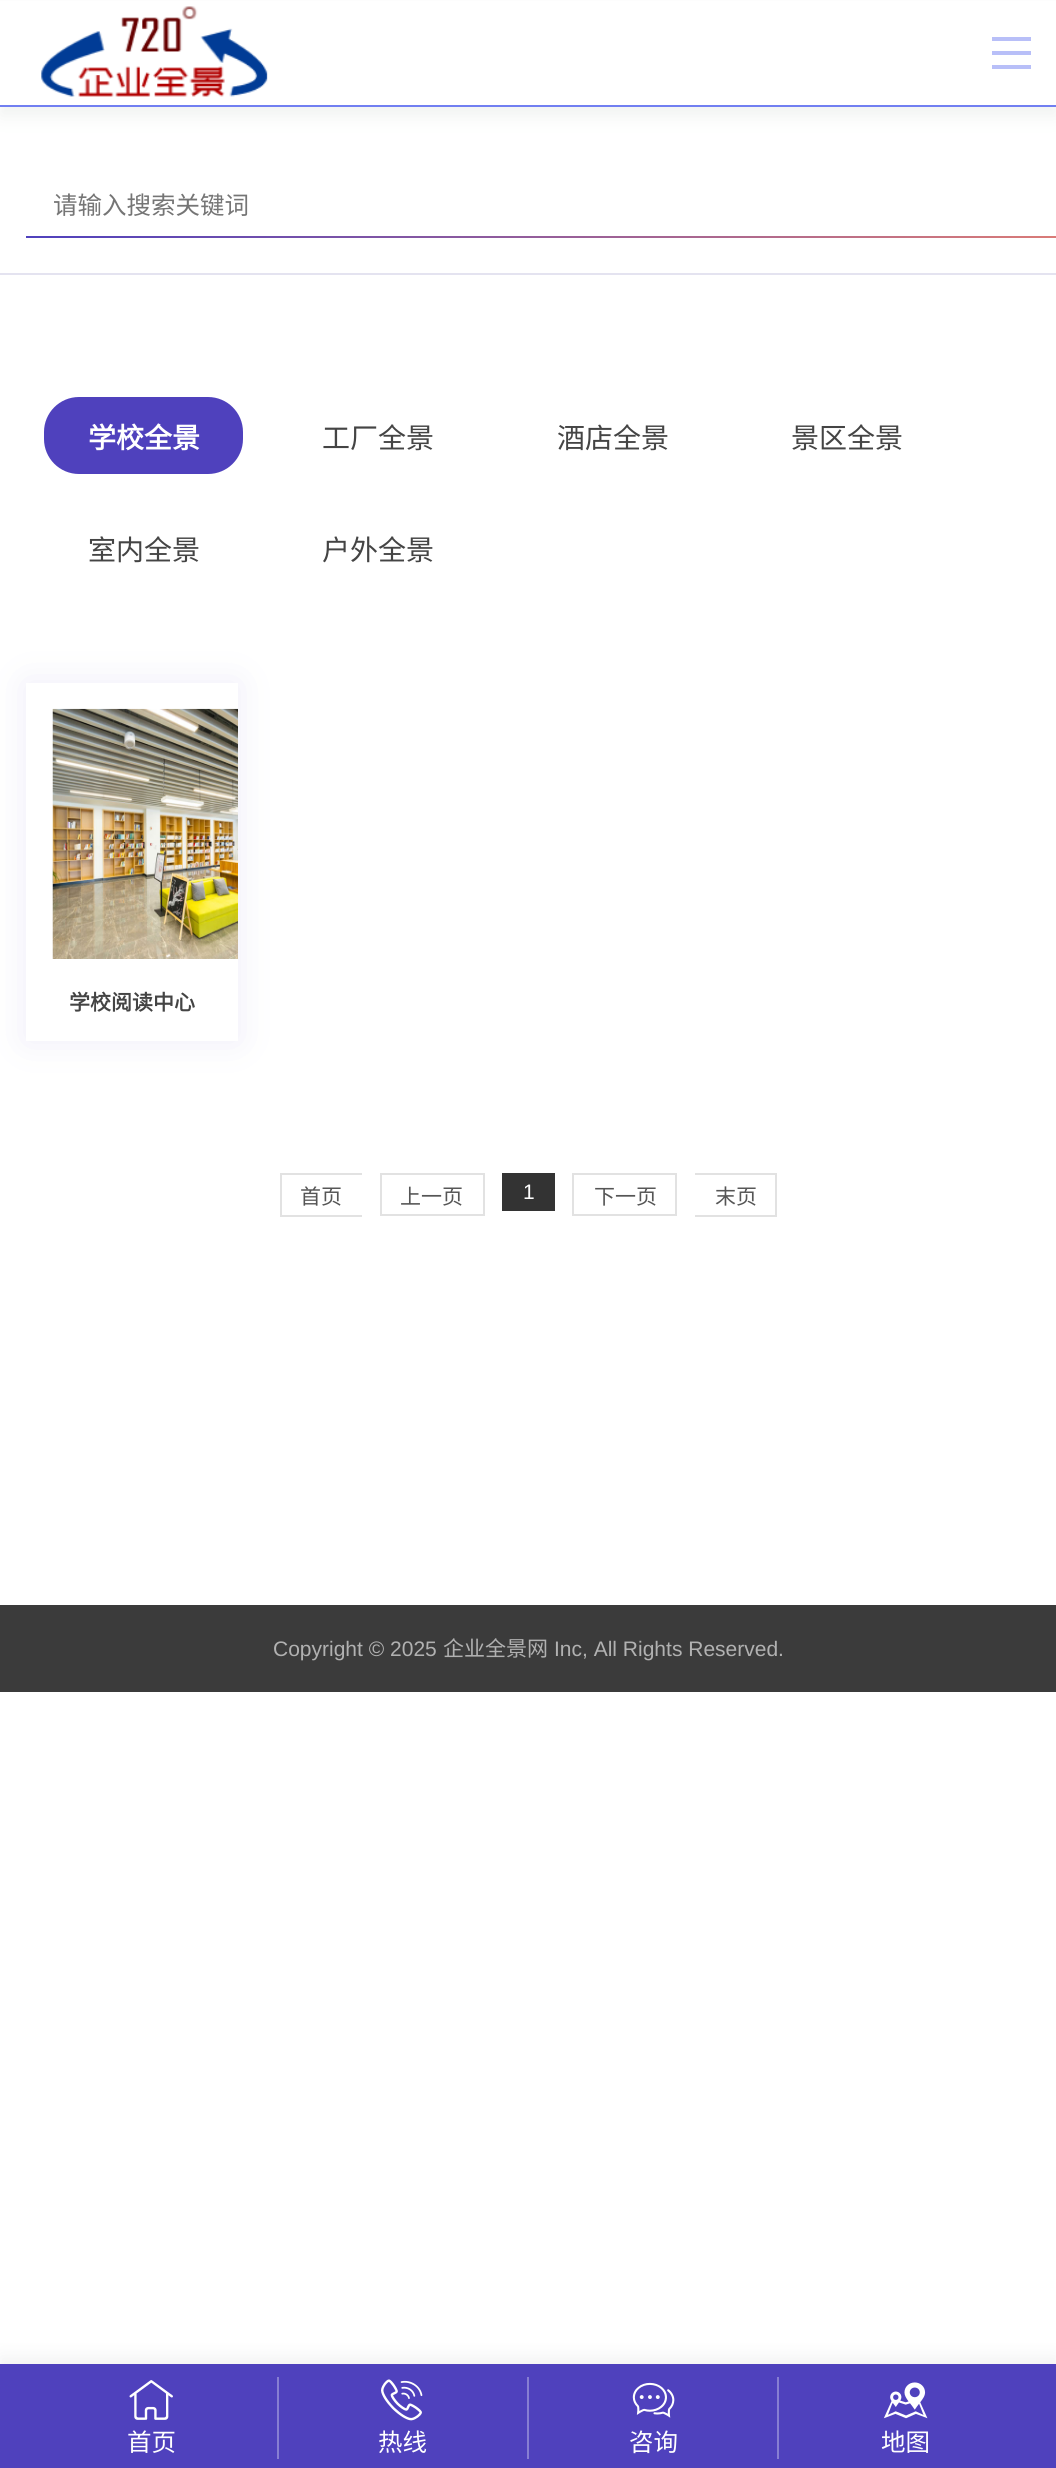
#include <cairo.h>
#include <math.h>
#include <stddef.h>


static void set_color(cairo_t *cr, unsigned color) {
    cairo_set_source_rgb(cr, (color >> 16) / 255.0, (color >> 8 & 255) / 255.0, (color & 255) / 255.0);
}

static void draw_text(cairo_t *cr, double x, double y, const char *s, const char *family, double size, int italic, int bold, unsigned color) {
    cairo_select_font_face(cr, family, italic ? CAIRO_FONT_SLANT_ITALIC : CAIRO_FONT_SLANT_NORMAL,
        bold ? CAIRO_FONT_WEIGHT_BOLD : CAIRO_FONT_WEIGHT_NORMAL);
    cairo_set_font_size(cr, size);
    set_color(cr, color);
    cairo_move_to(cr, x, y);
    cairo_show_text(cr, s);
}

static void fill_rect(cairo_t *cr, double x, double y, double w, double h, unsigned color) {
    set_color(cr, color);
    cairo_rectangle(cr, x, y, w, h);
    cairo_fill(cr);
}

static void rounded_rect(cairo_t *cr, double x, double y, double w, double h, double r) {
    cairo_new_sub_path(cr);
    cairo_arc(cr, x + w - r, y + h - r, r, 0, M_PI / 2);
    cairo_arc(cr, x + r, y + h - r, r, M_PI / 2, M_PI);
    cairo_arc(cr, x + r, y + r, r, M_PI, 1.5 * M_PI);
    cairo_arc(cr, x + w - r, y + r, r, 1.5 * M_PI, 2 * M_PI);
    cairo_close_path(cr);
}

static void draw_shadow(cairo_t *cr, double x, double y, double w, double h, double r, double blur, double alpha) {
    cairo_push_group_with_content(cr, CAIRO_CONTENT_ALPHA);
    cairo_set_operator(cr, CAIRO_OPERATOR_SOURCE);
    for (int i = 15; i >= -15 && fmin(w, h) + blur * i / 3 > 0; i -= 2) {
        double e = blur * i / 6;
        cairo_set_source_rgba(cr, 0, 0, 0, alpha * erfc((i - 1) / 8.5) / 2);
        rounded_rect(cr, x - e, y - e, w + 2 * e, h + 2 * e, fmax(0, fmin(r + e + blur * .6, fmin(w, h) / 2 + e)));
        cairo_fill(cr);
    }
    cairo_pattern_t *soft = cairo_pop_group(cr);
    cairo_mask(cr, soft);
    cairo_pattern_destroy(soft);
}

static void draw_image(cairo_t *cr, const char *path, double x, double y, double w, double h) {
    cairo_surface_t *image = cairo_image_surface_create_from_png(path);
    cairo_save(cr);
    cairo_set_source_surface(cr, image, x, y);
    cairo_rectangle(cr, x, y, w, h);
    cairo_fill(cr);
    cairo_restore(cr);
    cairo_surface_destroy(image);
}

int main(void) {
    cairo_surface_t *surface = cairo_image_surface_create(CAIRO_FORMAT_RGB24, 1056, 2468);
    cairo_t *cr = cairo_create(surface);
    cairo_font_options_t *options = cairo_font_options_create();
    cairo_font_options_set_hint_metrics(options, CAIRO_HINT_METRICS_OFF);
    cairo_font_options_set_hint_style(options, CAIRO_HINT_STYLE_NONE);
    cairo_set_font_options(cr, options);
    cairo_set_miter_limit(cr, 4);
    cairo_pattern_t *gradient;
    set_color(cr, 0xFFFFFF);
    cairo_paint(cr);
    set_color(cr, 0x6C806F);
    draw_shadow(cr, 0, 9, 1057, 107, 0, 9, 0.1);
    fill_rect(cr, 0, 1, 1056, 104, 0xFFFFFF);
    fill_rect(cr, 0, 105, 1056, 2, 0x717FF1);
    draw_image(cr, "assets/img1.png", 41, 6, 227, 91);
    fill_rect(cr, 992, 37, 39, 4, 0xB8BFF8);
    fill_rect(cr, 992, 51, 39, 4, 0xB8BFF8);
    fill_rect(cr, 992, 65, 39, 4, 0xB8BFF8);
    fill_rect(cr, 0, 273, 1056, 2, 0xE4E3F0);
    gradient = cairo_pattern_create_linear(26, 206, 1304, 206);
    cairo_pattern_add_color_stop_rgba(gradient, 0, 0.31, 0.255, 0.741, 1);
    cairo_pattern_add_color_stop_rgba(gradient, 1, 0.984, 0.537, 0.404, 1);
    cairo_set_source(cr, gradient);
    cairo_pattern_destroy(gradient);
    cairo_rectangle(cr, 26, 236, 1030, 2);
    cairo_fill(cr);
    draw_text(cr, 53, 214, "请输入搜索关键词", "Noto Sans CJK SC", 24.5, 0, 0, 0x757575);
    set_color(cr, 0x4F41BD);
    rounded_rect(cr, 44, 397, 199, 77, 35);
    cairo_fill(cr);
    draw_text(cr, 88, 448, "学校全景", "Noto Sans CJK SC", 28, 0, 1, 0xFFFFFF);
    draw_text(cr, 322, 448, "工厂全景", "Noto Sans CJK SC", 28, 0, 0, 0x444444);
    draw_text(cr, 557, 448, "酒店全景", "Noto Sans CJK SC", 28, 0, 0, 0x444444);
    draw_text(cr, 791, 448, "景区全景", "Noto Sans CJK SC", 28, 0, 0, 0x444444);
    draw_text(cr, 88, 560, "室内全景", "Noto Sans CJK SC", 28, 0, 0, 0x444444);
    draw_text(cr, 322, 560, "户外全景", "Noto Sans CJK SC", 28, 0, 0, 0x444444);
    set_color(cr, 0x4F41BD);
    draw_shadow(cr, 26, 683, 212, 358, 0, 17.5, 0.1);
    fill_rect(cr, 26, 683, 212, 358, 0xFFFFFF);
    draw_image(cr, "assets/img2.png", 52, 708, 186, 251);
    draw_text(cr, 69, 1010, "学校阅读中心", "Noto Sans CJK SC", 21, 0, 1, 0x444444);
    fill_rect(cr, 280, 1173, 82, 2, 0xE2E2E2);
    fill_rect(cr, 280, 1215, 82, 2, 0xE2E2E2);
    fill_rect(cr, 280, 1173, 2, 43, 0xE2E2E2);
    draw_text(cr, 300, 1204, "首页", "Noto Sans CJK SC", 21, 0, 0, 0x555555);
    cairo_rectangle(cr, 381, 1174, 103, 41);
    set_color(cr, 0xE2E2E2);
    cairo_stroke(cr);
    draw_text(cr, 400, 1204, "上一页", "Noto Sans CJK SC", 21, 0, 0, 0x555555);
    fill_rect(cr, 502, 1173, 53, 38, 0x333333);
    draw_text(cr, 523, 1199, "1", "Liberation Sans", 21, 0, 0, 0xFFFFFF);
    cairo_rectangle(cr, 573, 1174, 103, 41);
    set_color(cr, 0xE2E2E2);
    cairo_stroke(cr);
    draw_text(cr, 594, 1204, "下一页", "Noto Sans CJK SC", 21, 0, 0, 0x555555);
    fill_rect(cr, 695, 1173, 82, 2, 0xE2E2E2);
    fill_rect(cr, 775, 1173, 2, 43, 0xE2E2E2);
    fill_rect(cr, 695, 1215, 82, 2, 0xE2E2E2);
    draw_text(cr, 715, 1204, "末页", "Noto Sans CJK SC", 21, 0, 0, 0x555555);
    fill_rect(cr, 0, 1605, 1056, 87, 0x3B3B3B);
    draw_text(cr, 273, 1656, "Copyright © 2025", "Liberation Sans", 21, 0, 0, 0xB1B1B1);
    draw_text(cr, 443, 1656, "企业全景网", "Noto Sans CJK SC", 21, 0, 0, 0xB1B1B1);
    draw_text(cr, 554, 1656, "Inc, All Rights Reserved.", "Liberation Sans", 21, 0, 0, 0xB1B1B1);
    set_color(cr, 0x000000);
    draw_shadow(cr, 0, 2356, 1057, 105, 0, 9, 0.05);
    fill_rect(cr, 0, 2364, 1056, 104, 0x4F41BD);
    fill_rect(cr, 277, 2377, 2, 82, 0x877ED2);
    draw_image(cr, "assets/img3.png", 129, 2380, 44, 40);
    draw_text(cr, 127, 2451, "首页", "Noto Sans CJK SC", 24.5, 0, 0, 0xFFFFFF);
    fill_rect(cr, 527, 2377, 2, 82, 0x877ED2);
    draw_image(cr, "assets/img4.png", 381, 2379, 42, 42);
    draw_text(cr, 378, 2451, "热线", "Noto Sans CJK SC", 24.5, 0, 0, 0xFFFFFF);
    fill_rect(cr, 777, 2377, 2, 82, 0x877ED2);
    draw_image(cr, "assets/img5.png", 632, 2382, 43, 36);
    draw_text(cr, 629, 2451, "咨询", "Noto Sans CJK SC", 24.5, 0, 0, 0xFFFFFF);
    draw_image(cr, "assets/img6.png", 883, 2382, 45, 37);
    draw_text(cr, 881, 2451, "地图", "Noto Sans CJK SC", 24.5, 0, 0, 0xFFFFFF);
    cairo_surface_write_to_png(surface, "output.png");
    cairo_font_options_destroy(options);
    cairo_destroy(cr);
    cairo_surface_destroy(surface);
    return 0;
}
